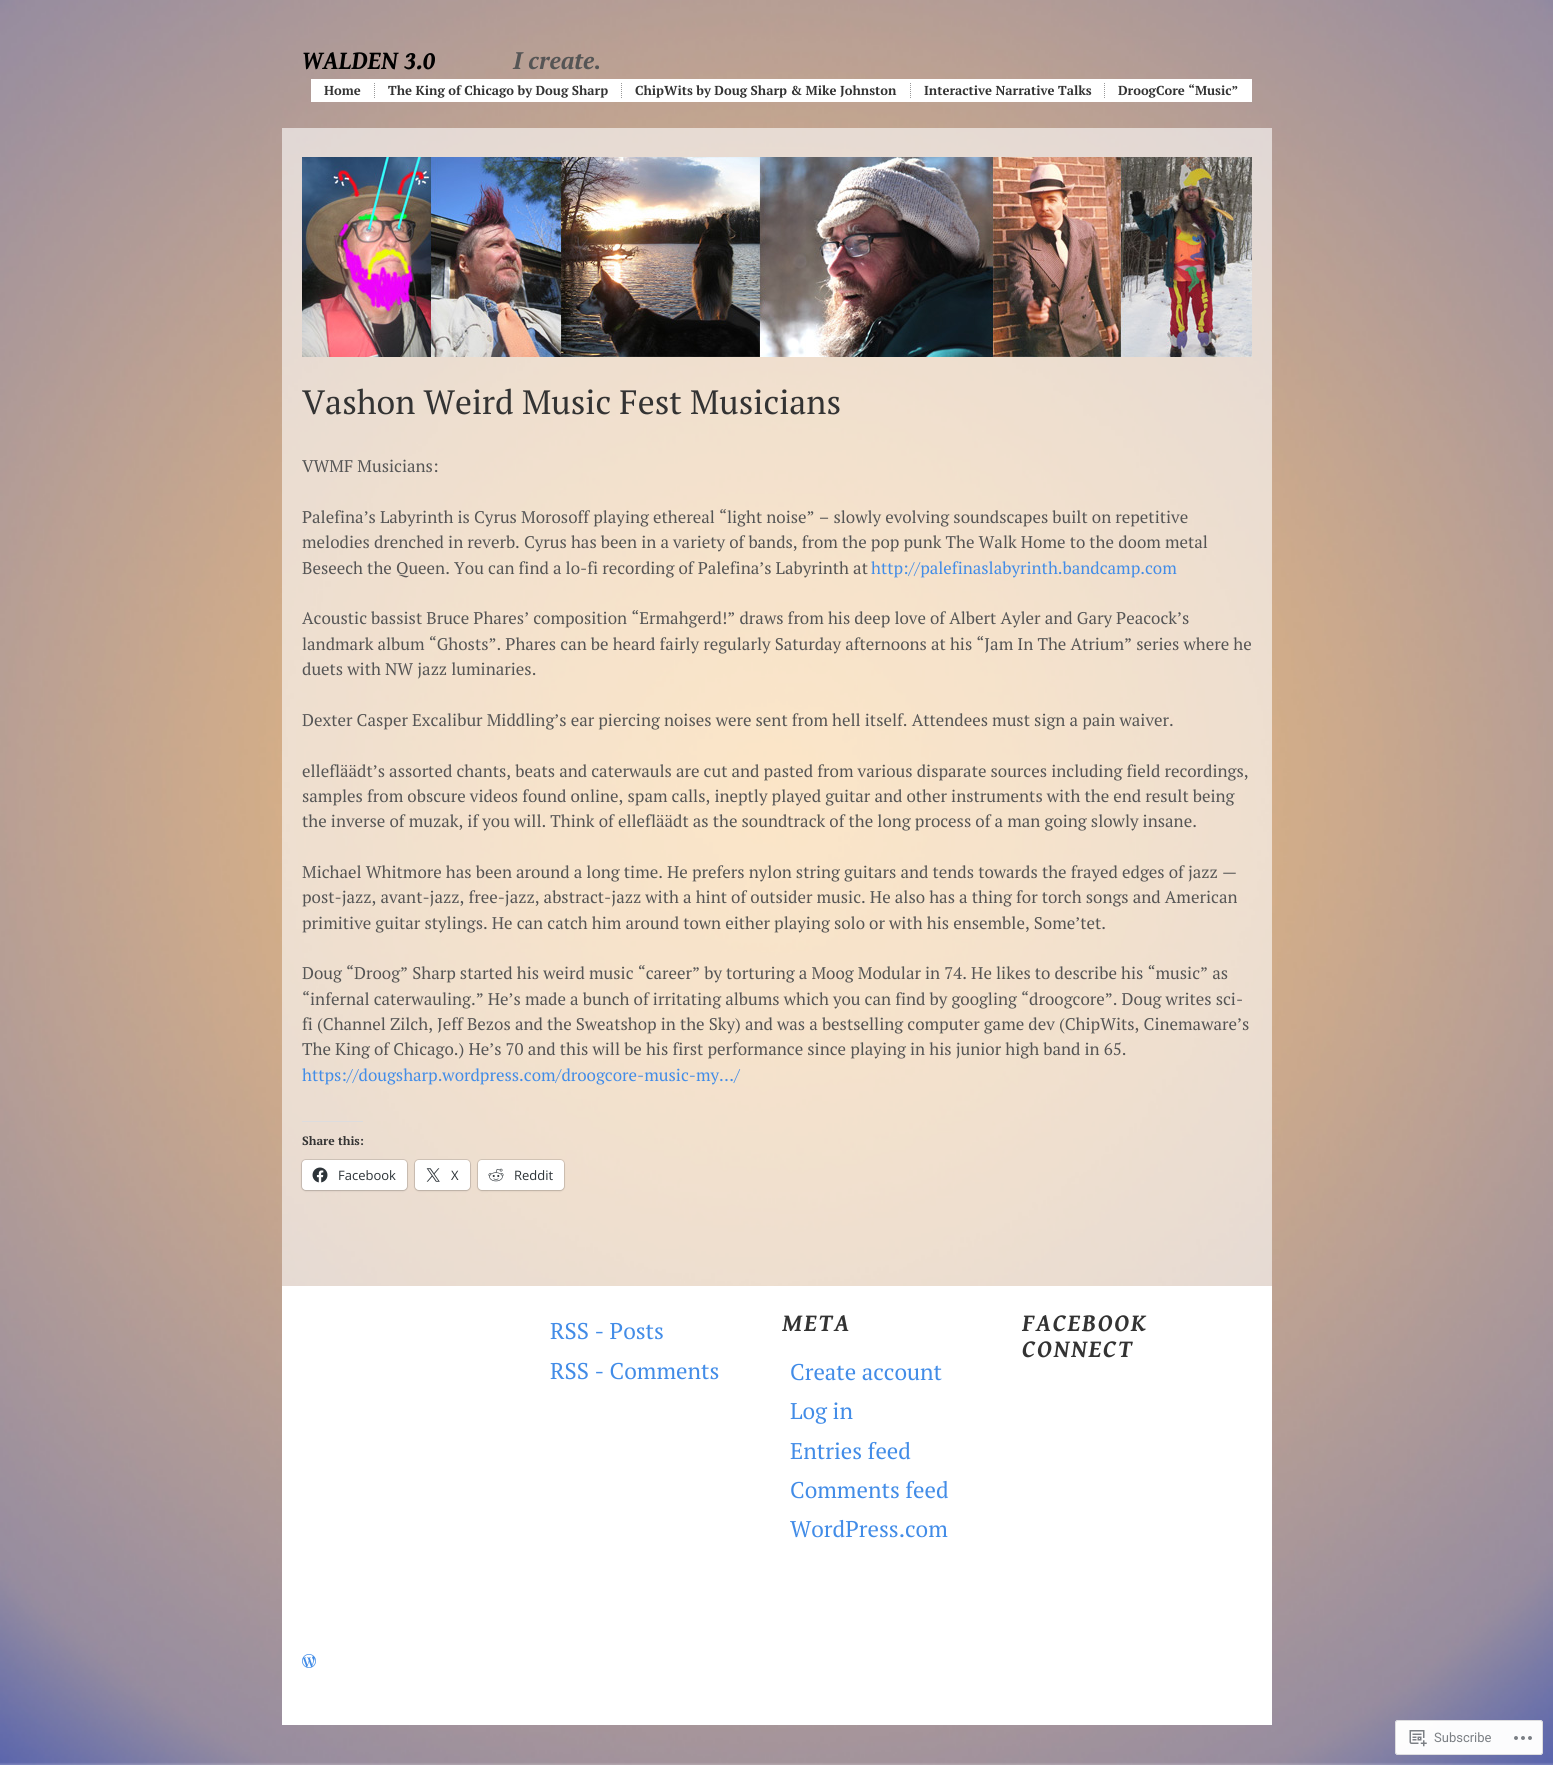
#include <cairo.h>
#include <math.h>
#include <stddef.h>


static void set_color(cairo_t *cr, unsigned color) {
    cairo_set_source_rgb(cr, (color >> 16) / 255.0, (color >> 8 & 255) / 255.0, (color & 255) / 255.0);
}

static void draw_text(cairo_t *cr, double x, double y, const char *s, const char *family, double size, int italic, int bold, unsigned color) {
    cairo_select_font_face(cr, family, italic ? CAIRO_FONT_SLANT_ITALIC : CAIRO_FONT_SLANT_NORMAL,
        bold ? CAIRO_FONT_WEIGHT_BOLD : CAIRO_FONT_WEIGHT_NORMAL);
    cairo_set_font_size(cr, size);
    set_color(cr, color);
    cairo_move_to(cr, x, y);
    cairo_show_text(cr, s);
}

static void draw_spaced(cairo_t *cr, double x, double y, const char *s, double letter, double word) {
    cairo_move_to(cr, x, y);
    while (*s) {
        char ch[5] = {0};
        int n = 0;
        do ch[n++] = *s++; while ((*s & 0xC0) == 0x80);
        cairo_show_text(cr, ch);
        cairo_rel_move_to(cr, letter + word * (*ch == ' '), 0);
    }
}

static void fill_rect(cairo_t *cr, double x, double y, double w, double h, unsigned color) {
    set_color(cr, color);
    cairo_rectangle(cr, x, y, w, h);
    cairo_fill(cr);
}

static void rounded_rect(cairo_t *cr, double x, double y, double w, double h, double r) {
    cairo_new_sub_path(cr);
    cairo_arc(cr, x + w - r, y + h - r, r, 0, M_PI / 2);
    cairo_arc(cr, x + r, y + h - r, r, M_PI / 2, M_PI);
    cairo_arc(cr, x + r, y + r, r, M_PI, 1.5 * M_PI);
    cairo_arc(cr, x + w - r, y + r, r, 1.5 * M_PI, 2 * M_PI);
    cairo_close_path(cr);
}

static void draw_shadow(cairo_t *cr, double x, double y, double w, double h, double r, double blur, double alpha) {
    cairo_push_group_with_content(cr, CAIRO_CONTENT_ALPHA);
    cairo_set_operator(cr, CAIRO_OPERATOR_SOURCE);
    for (int i = 15; i >= -15 && fmin(w, h) + blur * i / 3 > 0; i -= 2) {
        double e = blur * i / 6;
        cairo_set_source_rgba(cr, 0, 0, 0, alpha * erfc((i - 1) / 8.5) / 2);
        rounded_rect(cr, x - e, y - e, w + 2 * e, h + 2 * e, fmax(0, fmin(r + e + blur * .6, fmin(w, h) / 2 + e)));
        cairo_fill(cr);
    }
    cairo_pattern_t *soft = cairo_pop_group(cr);
    cairo_mask(cr, soft);
    cairo_pattern_destroy(soft);
}

static void draw_image(cairo_t *cr, const char *path, double x, double y, double w, double h) {
    cairo_surface_t *image = cairo_image_surface_create_from_png(path);
    cairo_save(cr);
    cairo_set_source_surface(cr, image, x, y);
    cairo_rectangle(cr, x, y, w, h);
    cairo_fill(cr);
    cairo_restore(cr);
    cairo_surface_destroy(image);
}

int main(void) {
    cairo_surface_t *surface = cairo_image_surface_create(CAIRO_FORMAT_RGB24, 1553, 1765);
    cairo_t *cr = cairo_create(surface);
    cairo_font_options_t *options = cairo_font_options_create();
    cairo_font_options_set_hint_metrics(options, CAIRO_HINT_METRICS_OFF);
    cairo_font_options_set_hint_style(options, CAIRO_HINT_STYLE_NONE);
    cairo_set_font_options(cr, options);
    cairo_set_miter_limit(cr, 4);
    set_color(cr, 0xFFFFFF);
    cairo_paint(cr);
    draw_image(cr, "assets/img1.png", 0, 0, 1553, 1765);
    draw_text(cr, 302, 69, "WALDEN 3.0", "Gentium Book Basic", 26.5, 1, 1, 0x000000);
    draw_text(cr, 513, 69, "I create.", "PT Serif", 24, 1, 1, 0x555555);
    fill_rect(cr, 311, 79, 941, 23, 0xFFFFFF);
    cairo_new_path(cr);
    cairo_move_to(cr, 374.5, 83);
    cairo_line_to(cr, 374.5, 98);
    set_color(cr, 0x999999);
    cairo_set_line_width(cr, 1);
    cairo_set_dash(cr, (double[]){1, 1}, 2, 0);
    cairo_stroke(cr);
    draw_text(cr, 324, 95, "Home", "PT Serif", 13, 0, 1, 0x333333);
    cairo_new_path(cr);
    cairo_move_to(cr, 621.5, 83);
    cairo_line_to(cr, 621.5, 98);
    set_color(cr, 0x999999);
    cairo_stroke(cr);
    draw_text(cr, 388, 95, "The King of Chicago by Doug Sharp", "PT Serif", 13, 0, 1, 0x333333);
    cairo_new_path(cr);
    cairo_move_to(cr, 910.5, 83);
    cairo_line_to(cr, 910.5, 98);
    set_color(cr, 0x999999);
    cairo_stroke(cr);
    draw_text(cr, 635, 95, "ChipWits by Doug Sharp & Mike Johnston", "PT Serif", 13, 0, 1, 0x333333);
    cairo_new_path(cr);
    cairo_move_to(cr, 1104.5, 83);
    cairo_line_to(cr, 1104.5, 98);
    set_color(cr, 0x999999);
    cairo_stroke(cr);
    draw_text(cr, 924, 95, "Interactive Narrative Talks", "PT Serif", 13, 0, 1, 0x333333);
    draw_text(cr, 1118, 95, "DroogCore “Music”", "PT Serif", 13, 0, 1, 0x333333);
    cairo_set_source_rgba(cr, 1, 1, 1, 0.6);
    cairo_rectangle(cr, 282, 128, 990, 1158);
    cairo_fill(cr);
    draw_image(cr, "assets/img2.png", 302, 157, 950, 200);
    draw_text(cr, 302, 414, "Vashon Weird Music Fest Musicians", "PT Serif", 33.75, 0, 0, 0x333333);
    draw_text(cr, 302, 472, "VWMF Musicians:", "PT Serif", 16.9, 0, 0, 0x555555);
    draw_text(cr, 302, 523, "Palefina’s Labyrinth is Cyrus Morosoff playing ethereal “light noise” – slowly evolving soundscapes built on repetitive", "PT Serif", 16.9, 0, 0, 0x555555);
    draw_text(cr, 302, 548, "melodies drenched in reverb. Cyrus has been in a variety of bands, from the pop punk The Walk Home to the doom metal", "PT Serif", 16.9, 0, 0, 0x555555);
    draw_text(cr, 302, 574, "Beseech the Queen. You can find a lo-fi recording of Palefina’s Labyrinth at", "PT Serif", 16.9, 0, 0, 0x555555);
    draw_text(cr, 871, 574, "http://palefinaslabyrinth.bandcamp.com", "PT Serif", 16.9, 0, 0, 0x428CE7);
    draw_text(cr, 302, 624, "Acoustic bassist Bruce Phares’ composition “Ermahgerd!” draws from his deep love of Albert Ayler and Gary Peacock’s", "PT Serif", 16.9, 0, 0, 0x555555);
    draw_text(cr, 302, 650, "landmark album “Ghosts”. Phares can be heard fairly regularly Saturday afternoons at his “Jam In The Atrium” series where he", "PT Serif", 16.9, 0, 0, 0x555555);
    draw_text(cr, 302, 675, "duets with NW jazz luminaries.", "PT Serif", 16.9, 0, 0, 0x555555);
    draw_text(cr, 302, 726, "Dexter Casper Excalibur Middling’s ear piercing noises were sent from hell itself. Attendees must sign a pain waiver.", "PT Serif", 16.9, 0, 0, 0x555555);
    draw_text(cr, 302, 777, "ellefläädt’s assorted chants, beats and caterwauls are cut and pasted from various disparate sources including field recordings,", "PT Serif", 16.9, 0, 0, 0x555555);
    draw_text(cr, 302, 802, "samples from obscure videos found online, spam calls, ineptly played guitar and other instruments with the end result being", "PT Serif", 16.9, 0, 0, 0x555555);
    draw_text(cr, 302, 827, "the inverse of muzak, if you will. Think of ellefläädt as the soundtrack of the long process of a man going slowly insane.", "PT Serif", 16.9, 0, 0, 0x555555);
    draw_text(cr, 302, 878, "Michael Whitmore has been around a long time. He prefers nylon string guitars and tends towards the frayed edges of jazz —", "PT Serif", 16.9, 0, 0, 0x555555);
    draw_text(cr, 302, 903, "post-jazz, avant-jazz, free-jazz, abstract-jazz with a hint of outsider music. He also has a thing for torch songs and American", "PT Serif", 16.9, 0, 0, 0x555555);
    draw_text(cr, 302, 929, "primitive guitar stylings. He can catch him around town either playing solo or with his ensemble, Some’tet.", "PT Serif", 16.9, 0, 0, 0x555555);
    draw_text(cr, 302, 979, "Doug “Droog” Sharp started his weird music “career” by torturing a Moog Modular in 74. He likes to describe his “music” as", "PT Serif", 16.9, 0, 0, 0x555555);
    draw_text(cr, 302, 1005, "“infernal caterwauling.” He’s made a bunch of irritating albums which you can find by googling “droogcore”. Doug writes sci-", "PT Serif", 16.9, 0, 0, 0x555555);
    draw_text(cr, 302, 1030, "fi (Channel Zilch, Jeff Bezos and the Sweatshop in the Sky) and was a bestselling computer game dev (ChipWits, Cinemaware’s", "PT Serif", 16.9, 0, 0, 0x555555);
    draw_text(cr, 302, 1055, "The King of Chicago.) He’s 70 and this will be his first performance since playing in his junior high band in 65.", "PT Serif", 16.9, 0, 0, 0x555555);
    draw_text(cr, 302, 1081, "https://dougsharp.wordpress.com/droogcore-music-my…/", "PT Serif", 16.9, 0, 0, 0x428CE7);
    fill_rect(cr, 302, 1121, 61, 1, 0xDCDCDE);
    draw_text(cr, 302, 1145, "Share this:", "PT Serif", 12, 0, 1, 0x333333);
    rounded_rect(cr, 301.5, 1159.5, 106, 31, 4.5);
    cairo_set_source_rgba(cr, 0, 0, 0, 0.12);
    cairo_set_dash(cr, NULL, 0, 0);
    cairo_stroke(cr);
    set_color(cr, 0x000000);
    draw_shadow(cr, 302, 1161, 105, 30, 4, 1, 0.12);
    set_color(cr, 0xFFFFFF);
    rounded_rect(cr, 302, 1160, 105, 30, 4);
    cairo_fill(cr);
    draw_image(cr, "assets/img3.png", 312, 1167, 16, 16);
    draw_text(cr, 338, 1180, "Facebook", "Open Sans", 13, 0, 0, 0x2C3338);
    rounded_rect(cr, 414.5, 1159.5, 56, 31, 4.5);
    set_color(cr, 0xD0C3B7);
    cairo_stroke(cr);
    set_color(cr, 0x000000);
    draw_shadow(cr, 415, 1161, 55, 30, 4, 1, 0.12);
    set_color(cr, 0xFFFFFF);
    rounded_rect(cr, 415, 1160, 55, 30, 4);
    cairo_fill(cr);
    draw_image(cr, "assets/img4.png", 426, 1168, 14, 14);
    draw_text(cr, 451, 1180, "X", "Open Sans", 13, 0, 0, 0x2C3338);
    rounded_rect(cr, 477.5, 1159.5, 87, 31, 4.5);
    cairo_set_source_rgba(cr, 0, 0, 0, 0.12);
    cairo_stroke(cr);
    set_color(cr, 0x000000);
    draw_shadow(cr, 478, 1161, 86, 30, 4, 1, 0.12);
    set_color(cr, 0xFFFFFF);
    rounded_rect(cr, 478, 1160, 86, 30, 4);
    cairo_fill(cr);
    draw_image(cr, "assets/img5.png", 488, 1168, 16, 14);
    draw_text(cr, 514, 1180, "Reddit", "Open Sans", 13, 0, 0, 0x2C3338);
    fill_rect(cr, 282, 1286, 990, 439, 0xFFFFFF);
    draw_text(cr, 550, 1339, "RSS - Posts", "PT Serif", 22.75, 0, 0, 0x428CE7);
    draw_text(cr, 550, 1379, "RSS - Comments", "PT Serif", 22.75, 0, 0, 0x428CE7);
    cairo_select_font_face(cr, "Gentium Book Basic", CAIRO_FONT_SLANT_ITALIC, CAIRO_FONT_WEIGHT_BOLD);
    cairo_set_font_size(cr, 25);
    set_color(cr, 0x333333);
    draw_spaced(cr, 782, 1331, "META", 2, 0);
    draw_text(cr, 790, 1380, "Create account", "PT Serif", 22.75, 0, 0, 0x428CE7);
    draw_text(cr, 790, 1419, "Log in", "PT Serif", 22.75, 0, 0, 0x428CE7);
    draw_text(cr, 790, 1459, "Entries feed", "PT Serif", 22.75, 0, 0, 0x428CE7);
    draw_text(cr, 790, 1498, "Comments feed", "PT Serif", 22.75, 0, 0, 0x428CE7);
    draw_text(cr, 790, 1537, "WordPress.com", "PT Serif", 22.75, 0, 0, 0x428CE7);
    cairo_select_font_face(cr, "Gentium Book Basic", CAIRO_FONT_SLANT_ITALIC, CAIRO_FONT_WEIGHT_BOLD);
    cairo_set_font_size(cr, 25);
    set_color(cr, 0x333333);
    draw_spaced(cr, 1022, 1331, "FACEBOOK", 2, 0);
    draw_spaced(cr, 1022, 1357, "CONNECT", 2, 0);
    draw_image(cr, "assets/img6.png", 302, 1654, 14, 14);
    cairo_set_source_rgba(cr, 1, 1, 1, 0.98);
    rounded_rect(cr, 1395, 1720, 148, 35, 3);
    cairo_fill(cr);
    rounded_rect(cr, 1395.5, 1720.5, 147, 34, 2.5);
    cairo_set_source_rgba(cr, 0.863, 0.863, 0.871, 0.98);
    cairo_stroke(cr);
    draw_image(cr, "assets/img7.png", 1409, 1730, 18, 17);
    draw_text(cr, 1434, 1742, "Subscribe", "Roboto", 13, 0, 0, 0x7B7F84);
    draw_image(cr, "assets/img8.png", 1514, 1736, 18, 4);
    cairo_surface_write_to_png(surface, "output.png");
    cairo_font_options_destroy(options);
    cairo_destroy(cr);
    cairo_surface_destroy(surface);
    return 0;
}
